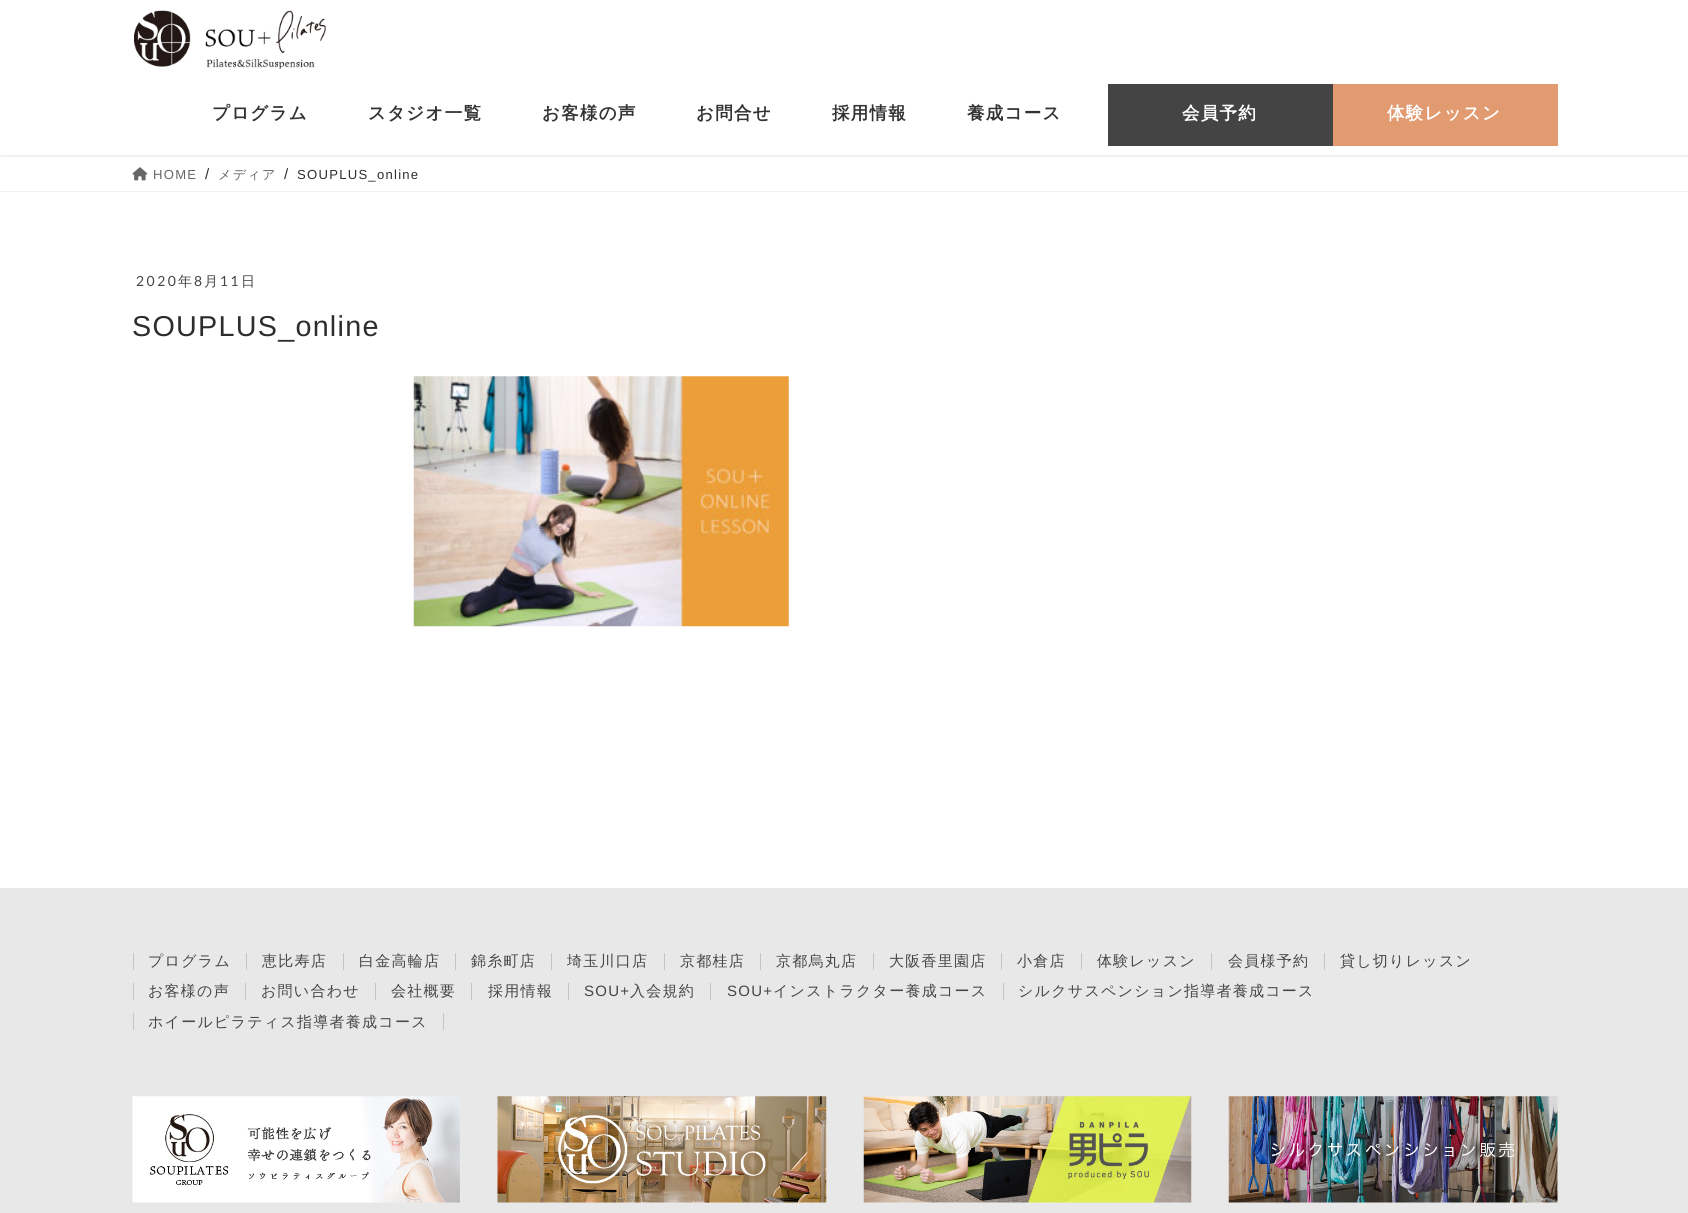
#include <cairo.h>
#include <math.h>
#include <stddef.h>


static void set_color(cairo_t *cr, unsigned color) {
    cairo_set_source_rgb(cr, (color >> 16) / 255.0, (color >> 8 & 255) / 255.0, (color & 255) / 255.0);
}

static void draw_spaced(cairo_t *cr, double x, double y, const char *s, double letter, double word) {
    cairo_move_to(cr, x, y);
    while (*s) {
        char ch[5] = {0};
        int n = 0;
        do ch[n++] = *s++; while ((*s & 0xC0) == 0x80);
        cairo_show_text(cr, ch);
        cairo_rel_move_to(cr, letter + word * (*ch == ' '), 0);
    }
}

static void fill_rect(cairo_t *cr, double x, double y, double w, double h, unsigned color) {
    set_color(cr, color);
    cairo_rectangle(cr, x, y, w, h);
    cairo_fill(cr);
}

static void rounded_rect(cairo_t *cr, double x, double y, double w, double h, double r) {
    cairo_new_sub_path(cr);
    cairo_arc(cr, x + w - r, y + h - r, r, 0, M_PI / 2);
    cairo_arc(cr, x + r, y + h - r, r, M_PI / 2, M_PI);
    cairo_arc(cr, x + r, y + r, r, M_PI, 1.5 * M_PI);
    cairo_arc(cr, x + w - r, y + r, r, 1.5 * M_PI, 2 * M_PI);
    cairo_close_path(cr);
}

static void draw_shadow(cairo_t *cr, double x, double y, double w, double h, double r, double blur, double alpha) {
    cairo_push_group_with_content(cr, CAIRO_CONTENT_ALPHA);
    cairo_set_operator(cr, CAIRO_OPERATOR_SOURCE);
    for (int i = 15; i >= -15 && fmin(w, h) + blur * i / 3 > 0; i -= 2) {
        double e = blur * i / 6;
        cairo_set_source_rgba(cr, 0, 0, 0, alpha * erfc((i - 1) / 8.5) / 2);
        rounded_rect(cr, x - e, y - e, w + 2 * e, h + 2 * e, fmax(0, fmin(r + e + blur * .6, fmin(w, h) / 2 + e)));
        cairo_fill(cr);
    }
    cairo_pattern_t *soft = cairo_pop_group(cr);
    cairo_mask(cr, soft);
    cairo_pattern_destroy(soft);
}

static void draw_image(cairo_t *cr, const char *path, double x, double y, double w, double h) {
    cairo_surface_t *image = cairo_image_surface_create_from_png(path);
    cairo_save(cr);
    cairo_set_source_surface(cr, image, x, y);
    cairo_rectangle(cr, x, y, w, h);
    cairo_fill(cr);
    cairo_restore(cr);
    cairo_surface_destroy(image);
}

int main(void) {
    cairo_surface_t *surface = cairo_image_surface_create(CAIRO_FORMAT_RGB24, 1688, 1213);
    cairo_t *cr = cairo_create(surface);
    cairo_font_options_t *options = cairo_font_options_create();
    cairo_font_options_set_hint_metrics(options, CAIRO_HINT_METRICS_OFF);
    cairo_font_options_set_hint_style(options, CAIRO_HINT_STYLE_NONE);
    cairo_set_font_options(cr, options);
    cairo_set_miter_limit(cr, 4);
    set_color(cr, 0xFFFFFF);
    cairo_paint(cr);
    cairo_save(cr);
    cairo_rectangle(cr, 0, 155, 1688, 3);
    cairo_clip(cr);
    set_color(cr, 0x000000);
    draw_shadow(cr, 0, 1, 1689, 155, 0, 2, 0.1);
    cairo_restore(cr);
    draw_image(cr, "assets/img1.png", 133, 10, 193, 59);
    cairo_select_font_face(cr, "WenQuanYi Zen Hei", CAIRO_FONT_SLANT_NORMAL, CAIRO_FONT_WEIGHT_BOLD);
    cairo_set_font_size(cr, 17.5);
    set_color(cr, 0x333333);
    draw_spaced(cr, 212, 119, "プログラム", 1.25, 0);
    draw_spaced(cr, 368, 119, "スタジオ一覧", 1.25, 0);
    draw_spaced(cr, 542, 119, "お客様の声", 1.25, 0);
    draw_spaced(cr, 696, 119, "お問合せ", 1.25, 0);
    draw_spaced(cr, 832, 119, "採用情報", 1.25, 0);
    draw_spaced(cr, 967, 119, "養成コース", 1.25, 0);
    fill_rect(cr, 1108, 84, 225, 62, 0x444444);
    set_color(cr, 0xFFFFFF);
    draw_spaced(cr, 1182, 119, "会員予約", 1.25, 0);
    fill_rect(cr, 1333, 84, 225, 62, 0xE29A70);
    set_color(cr, 0xFFFFFF);
    draw_spaced(cr, 1387, 119, "体験レッスン", 1.25, 0);
    fill_rect(cr, 0, 191, 1688, 1, 0xF2F2F2);
    draw_image(cr, "assets/img2.png", 132, 167, 16, 14);
    cairo_select_font_face(cr, "Liberation Sans", CAIRO_FONT_SLANT_NORMAL, CAIRO_FONT_WEIGHT_NORMAL);
    cairo_set_font_size(cr, 13.1);
    set_color(cr, 0x666666);
    draw_spaced(cr, 153, 179, "HOME", 1.25, 0);
    cairo_set_font_size(cr, 15);
    set_color(cr, 0x2D2D2D);
    draw_spaced(cr, 205, 179, "/", 1.25, 0);
    cairo_select_font_face(cr, "WenQuanYi Zen Hei Medium", CAIRO_FONT_SLANT_NORMAL, CAIRO_FONT_WEIGHT_NORMAL);
    cairo_set_font_size(cr, 13.1);
    set_color(cr, 0x666666);
    draw_spaced(cr, 218, 179, "メディア", 1.25, 0);
    cairo_select_font_face(cr, "Liberation Sans", CAIRO_FONT_SLANT_NORMAL, CAIRO_FONT_WEIGHT_NORMAL);
    cairo_set_font_size(cr, 15);
    set_color(cr, 0x2D2D2D);
    draw_spaced(cr, 284, 179, "/", 1.25, 0);
    cairo_set_font_size(cr, 13.1);
    draw_spaced(cr, 297, 179, "SOUPLUS_online", 1.25, 0);
    cairo_select_font_face(cr, "Lato", CAIRO_FONT_SLANT_NORMAL, CAIRO_FONT_WEIGHT_NORMAL);
    cairo_set_font_size(cr, 14);
    set_color(cr, 0x464646);
    draw_spaced(cr, 136, 286, "2020", 2.5, 0);
    cairo_select_font_face(cr, "WenQuanYi Zen Hei Medium", CAIRO_FONT_SLANT_NORMAL, CAIRO_FONT_WEIGHT_NORMAL);
    draw_spaced(cr, 178, 286, "年", 2.5, 0);
    cairo_select_font_face(cr, "Lato", CAIRO_FONT_SLANT_NORMAL, CAIRO_FONT_WEIGHT_NORMAL);
    draw_spaced(cr, 194, 286, "8", 2.5, 0);
    cairo_select_font_face(cr, "WenQuanYi Zen Hei Medium", CAIRO_FONT_SLANT_NORMAL, CAIRO_FONT_WEIGHT_NORMAL);
    draw_spaced(cr, 204, 286, "月", 2.5, 0);
    cairo_select_font_face(cr, "Lato", CAIRO_FONT_SLANT_NORMAL, CAIRO_FONT_WEIGHT_NORMAL);
    draw_spaced(cr, 220, 286, "11", 2.5, 0);
    cairo_select_font_face(cr, "WenQuanYi Zen Hei Medium", CAIRO_FONT_SLANT_NORMAL, CAIRO_FONT_WEIGHT_NORMAL);
    draw_spaced(cr, 241, 286, "日", 2.5, 0);
    cairo_select_font_face(cr, "Liberation Sans", CAIRO_FONT_SLANT_NORMAL, CAIRO_FONT_WEIGHT_NORMAL);
    cairo_set_font_size(cr, 28.75);
    set_color(cr, 0x2D2D2D);
    draw_spaced(cr, 132, 336, "SOUPLUS_online", 1.25, 0);
    draw_image(cr, "assets/img3.png", 413, 376, 376, 251);
    fill_rect(cr, 0, 888, 1688, 325, 0xE8E8E8);
    cairo_select_font_face(cr, "WenQuanYi Zen Hei Medium", CAIRO_FONT_SLANT_NORMAL, CAIRO_FONT_WEIGHT_NORMAL);
    cairo_set_font_size(cr, 15);
    set_color(cr, 0x464646);
    draw_spaced(cr, 148, 966, "プログラム", 1.25, 0);
    fill_rect(cr, 133, 953, 1, 17, 0xC5C5C5);
    set_color(cr, 0x464646);
    draw_spaced(cr, 262, 966, "恵比寿店", 1.25, 0);
    fill_rect(cr, 246, 953, 1, 17, 0xC5C5C5);
    set_color(cr, 0x464646);
    draw_spaced(cr, 359, 966, "白金高輪店", 1.25, 0);
    fill_rect(cr, 343, 953, 1, 17, 0xC5C5C5);
    set_color(cr, 0x464646);
    draw_spaced(cr, 471, 966, "錦糸町店", 1.25, 0);
    fill_rect(cr, 455, 953, 1, 17, 0xC5C5C5);
    set_color(cr, 0x464646);
    draw_spaced(cr, 567, 966, "埼玉川口店", 1.25, 0);
    fill_rect(cr, 551, 953, 1, 17, 0xC5C5C5);
    set_color(cr, 0x464646);
    draw_spaced(cr, 680, 966, "京都桂店", 1.25, 0);
    fill_rect(cr, 664, 953, 1, 17, 0xC5C5C5);
    set_color(cr, 0x464646);
    draw_spaced(cr, 776, 966, "京都烏丸店", 1.25, 0);
    fill_rect(cr, 760, 953, 1, 17, 0xC5C5C5);
    set_color(cr, 0x464646);
    draw_spaced(cr, 889, 966, "大阪香里園店", 1.25, 0);
    fill_rect(cr, 873, 953, 1, 17, 0xC5C5C5);
    set_color(cr, 0x464646);
    draw_spaced(cr, 1017, 966, "小倉店", 1.25, 0);
    fill_rect(cr, 1001, 953, 1, 17, 0xC5C5C5);
    set_color(cr, 0x464646);
    draw_spaced(cr, 1097, 966, "体験レッスン", 1.25, 0);
    fill_rect(cr, 1081, 953, 1, 17, 0xC5C5C5);
    set_color(cr, 0x464646);
    draw_spaced(cr, 1228, 966, "会員様予約", 1.25, 0);
    fill_rect(cr, 1211, 953, 1, 17, 0xC5C5C5);
    set_color(cr, 0x464646);
    draw_spaced(cr, 1340, 966, "貸し切りレッスン", 1.25, 0);
    fill_rect(cr, 1324, 953, 1, 17, 0xC5C5C5);
    set_color(cr, 0x464646);
    draw_spaced(cr, 148, 996, "お客様の声", 1.25, 0);
    fill_rect(cr, 133, 983, 1, 17, 0xC5C5C5);
    set_color(cr, 0x464646);
    draw_spaced(cr, 261, 996, "お問い合わせ", 1.25, 0);
    fill_rect(cr, 245, 983, 1, 17, 0xC5C5C5);
    set_color(cr, 0x464646);
    draw_spaced(cr, 391, 996, "会社概要", 1.25, 0);
    fill_rect(cr, 375, 983, 1, 17, 0xC5C5C5);
    set_color(cr, 0x464646);
    draw_spaced(cr, 488, 996, "採用情報", 1.25, 0);
    fill_rect(cr, 471, 983, 1, 17, 0xC5C5C5);
    cairo_select_font_face(cr, "Liberation Sans", CAIRO_FONT_SLANT_NORMAL, CAIRO_FONT_WEIGHT_NORMAL);
    set_color(cr, 0x464646);
    draw_spaced(cr, 584, 996, "SOU+", 1.25, 0);
    fill_rect(cr, 568, 983, 1, 17, 0xC5C5C5);
    cairo_select_font_face(cr, "WenQuanYi Zen Hei Medium", CAIRO_FONT_SLANT_NORMAL, CAIRO_FONT_WEIGHT_NORMAL);
    set_color(cr, 0x464646);
    draw_spaced(cr, 630, 996, "入会規約", 1.25, 0);
    cairo_select_font_face(cr, "Liberation Sans", CAIRO_FONT_SLANT_NORMAL, CAIRO_FONT_WEIGHT_NORMAL);
    draw_spaced(cr, 727, 996, "SOU+", 1.25, 0);
    fill_rect(cr, 710, 983, 1, 17, 0xC5C5C5);
    cairo_select_font_face(cr, "WenQuanYi Zen Hei Medium", CAIRO_FONT_SLANT_NORMAL, CAIRO_FONT_WEIGHT_NORMAL);
    set_color(cr, 0x464646);
    draw_spaced(cr, 773, 996, "インストラクター養成コース", 1.25, 0);
    draw_spaced(cr, 1018, 996, "シルクサスペンション指導者養成コース", 1.25, 0);
    fill_rect(cr, 1003, 983, 1, 17, 0xC5C5C5);
    set_color(cr, 0x464646);
    draw_spaced(cr, 148, 1027, "ホイールピラティス指導者養成コース", 1.25, 0);
    fill_rect(cr, 443, 1013, 1, 17, 0xC5C5C5);
    fill_rect(cr, 133, 1013, 1, 17, 0xC5C5C5);
    draw_image(cr, "assets/img4.png", 132, 1096, 328, 107);
    draw_image(cr, "assets/img5.png", 497, 1096, 330, 107);
    draw_image(cr, "assets/img6.png", 863, 1096, 329, 107);
    draw_image(cr, "assets/img7.png", 1228, 1096, 330, 107);
    cairo_surface_write_to_png(surface, "output.png");
    cairo_font_options_destroy(options);
    cairo_destroy(cr);
    cairo_surface_destroy(surface);
    return 0;
}
